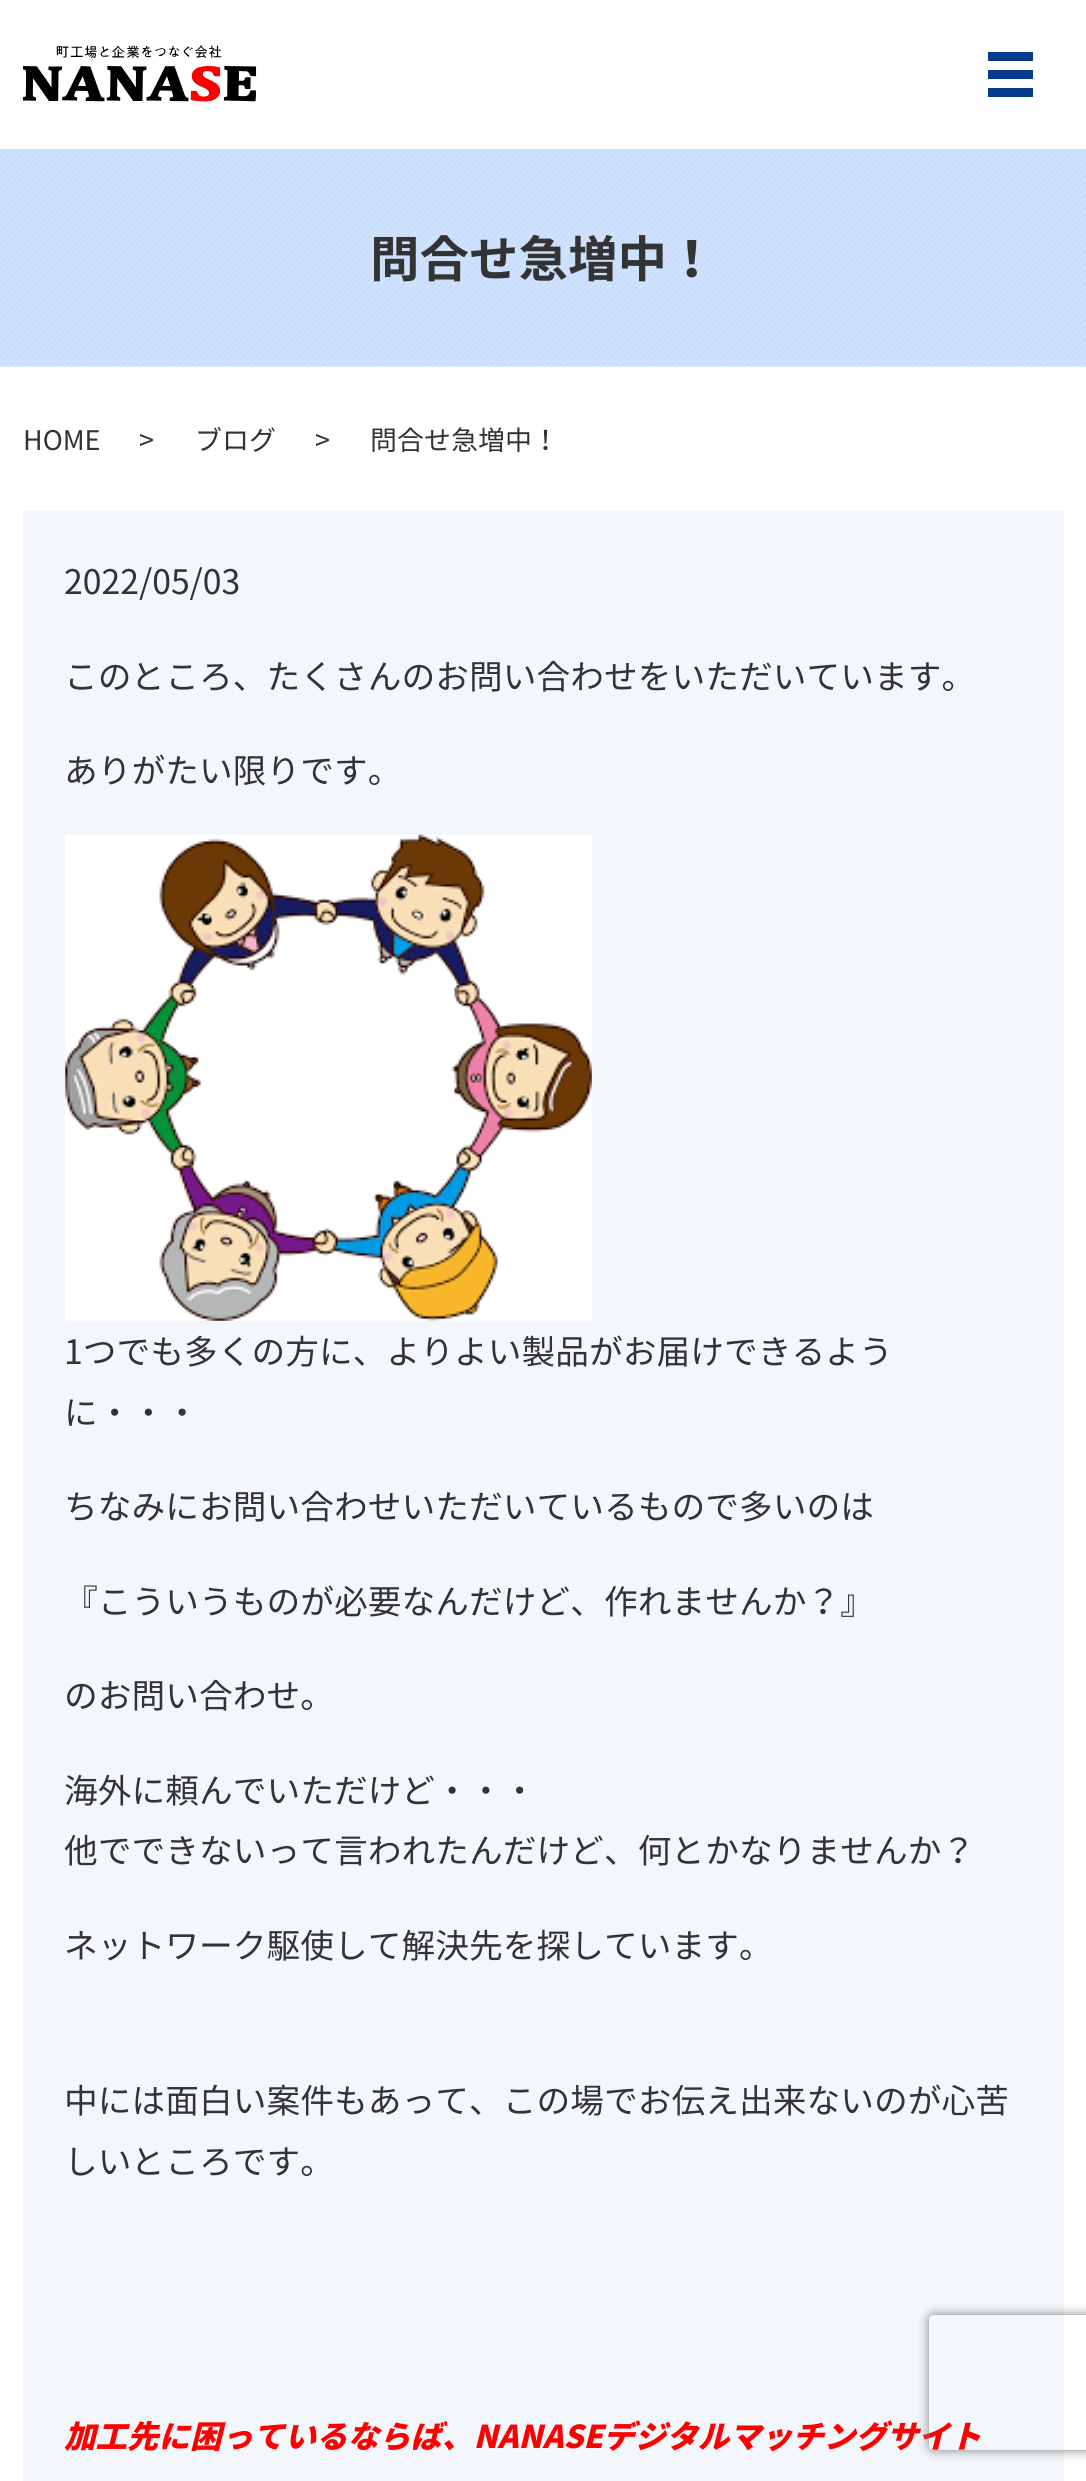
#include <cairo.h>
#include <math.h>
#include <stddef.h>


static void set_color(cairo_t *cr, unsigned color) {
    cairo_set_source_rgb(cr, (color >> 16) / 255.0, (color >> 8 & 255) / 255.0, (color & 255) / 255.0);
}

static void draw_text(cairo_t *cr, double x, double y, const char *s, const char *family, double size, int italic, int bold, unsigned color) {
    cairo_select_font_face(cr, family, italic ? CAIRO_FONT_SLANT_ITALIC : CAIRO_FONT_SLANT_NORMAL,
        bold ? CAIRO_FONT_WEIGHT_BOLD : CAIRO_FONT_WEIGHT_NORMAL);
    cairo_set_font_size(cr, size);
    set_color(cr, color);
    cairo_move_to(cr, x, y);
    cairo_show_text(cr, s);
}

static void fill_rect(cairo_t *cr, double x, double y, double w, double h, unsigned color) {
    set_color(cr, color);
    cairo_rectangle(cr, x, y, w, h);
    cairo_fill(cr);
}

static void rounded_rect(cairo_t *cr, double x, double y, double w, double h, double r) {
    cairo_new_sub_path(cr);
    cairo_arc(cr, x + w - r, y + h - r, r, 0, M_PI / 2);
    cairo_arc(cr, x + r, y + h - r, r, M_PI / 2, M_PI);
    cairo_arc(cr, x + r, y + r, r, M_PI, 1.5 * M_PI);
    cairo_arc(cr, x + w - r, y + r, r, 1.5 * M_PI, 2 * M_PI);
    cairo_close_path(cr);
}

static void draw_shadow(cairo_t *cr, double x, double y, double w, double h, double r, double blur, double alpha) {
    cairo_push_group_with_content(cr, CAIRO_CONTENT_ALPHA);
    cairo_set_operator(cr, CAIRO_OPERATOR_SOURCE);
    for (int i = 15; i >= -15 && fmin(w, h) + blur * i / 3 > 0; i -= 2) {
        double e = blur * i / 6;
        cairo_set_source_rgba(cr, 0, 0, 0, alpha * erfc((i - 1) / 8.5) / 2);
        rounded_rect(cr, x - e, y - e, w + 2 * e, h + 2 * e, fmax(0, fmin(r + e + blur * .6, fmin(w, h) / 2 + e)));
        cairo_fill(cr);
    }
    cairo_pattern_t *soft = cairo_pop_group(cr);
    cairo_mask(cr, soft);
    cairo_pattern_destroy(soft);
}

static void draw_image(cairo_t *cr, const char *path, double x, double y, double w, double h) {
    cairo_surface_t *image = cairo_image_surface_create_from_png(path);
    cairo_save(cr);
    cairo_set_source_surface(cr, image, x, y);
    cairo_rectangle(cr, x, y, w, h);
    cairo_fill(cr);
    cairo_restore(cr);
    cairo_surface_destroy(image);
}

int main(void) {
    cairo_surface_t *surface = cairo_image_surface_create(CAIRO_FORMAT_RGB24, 1086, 2481);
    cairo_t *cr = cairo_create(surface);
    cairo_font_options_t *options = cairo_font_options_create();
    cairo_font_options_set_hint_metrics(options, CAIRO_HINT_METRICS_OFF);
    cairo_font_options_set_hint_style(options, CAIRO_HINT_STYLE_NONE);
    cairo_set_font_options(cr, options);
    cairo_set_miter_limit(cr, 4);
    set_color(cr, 0xFFFFFF);
    cairo_paint(cr);
    draw_image(cr, "assets/img1.png", 22, 45, 235, 57);
    fill_rect(cr, 988, 52, 45, 9, 0x063B8D);
    fill_rect(cr, 988, 70, 45, 9, 0x063B8D);
    fill_rect(cr, 988, 88, 45, 9, 0x063B8D);
    draw_image(cr, "assets/img2.png", 0, 149, 1086, 218);
    draw_text(cr, 370, 277, "問合せ急増中！", "Noto Sans JP", 49.5, 0, 1, 0x333333);
    draw_text(cr, 23, 450, "HOME", "Noto Sans JP", 27, 0, 0, 0x333333);
    draw_text(cr, 139, 450, ">", "Noto Sans JP", 27, 0, 0, 0x333333);
    draw_text(cr, 195, 450, "ブログ", "Noto Sans JP", 27, 0, 0, 0x333333);
    draw_text(cr, 315, 450, ">", "Noto Sans JP", 27, 0, 0, 0x333333);
    draw_text(cr, 370, 450, "問合せ急増中！", "Noto Sans JP", 27, 0, 0, 0x333333);
    fill_rect(cr, 23, 511, 1041, 1970, 0xF3F6FA);
    draw_text(cr, 64, 594, "2022/05/03", "Noto Sans JP", 33.75, 0, 0, 0x333333);
    draw_text(cr, 64, 689, "このところ、たくさんのお問い合わせをいただいています。", "Noto Sans JP", 33.75, 0, 0, 0x333333);
    draw_text(cr, 64, 783, "ありがたい限りです。", "Noto Sans JP", 33.75, 0, 0, 0x333333);
    draw_image(cr, "assets/img3.png", 65, 834, 527, 487);
    draw_text(cr, 64, 1364, "1つでも多くの方に、よりよい製品がお届けできるよう", "Noto Sans JP", 33.75, 0, 0, 0x333333);
    draw_text(cr, 64, 1425, "に・・・", "Noto Sans JP", 33.75, 0, 0, 0x333333);
    draw_text(cr, 64, 1519, "ちなみにお問い合わせいただいているもので多いのは", "Noto Sans JP", 33.75, 0, 0, 0x333333);
    draw_text(cr, 64, 1614, "『こういうものが必要なんだけど、作れませんか？』", "Noto Sans JP", 33.75, 0, 0, 0x333333);
    draw_text(cr, 64, 1708, "のお問い合わせ。", "Noto Sans JP", 33.75, 0, 0, 0x333333);
    draw_text(cr, 64, 1803, "海外に頼んでいただけど・・・", "Noto Sans JP", 33.75, 0, 0, 0x333333);
    draw_text(cr, 64, 1863, "他でできないって言われたんだけど、何とかなりませんか？", "Noto Sans JP", 33.75, 0, 0, 0x333333);
    draw_text(cr, 64, 1958, "ネットワーク駆使して解決先を探しています。", "Noto Sans JP", 33.75, 0, 0, 0x333333);
    draw_text(cr, 64, 2113, "中には面白い案件もあって、この場でお伝え出来ないのが心苦", "Noto Sans JP", 33.75, 0, 0, 0x333333);
    draw_text(cr, 64, 2174, "しいところです。", "Noto Sans JP", 33.75, 0, 0, 0x333333);
    draw_text(cr, 64, 2448, "加工先に困っているならば、NANASEデジタルマッチングサイト", "Noto Sans JP Black", 31.5, 1, 0, 0xFF0000);
    cairo_save(cr);
    cairo_set_fill_rule(cr, CAIRO_FILL_RULE_EVEN_ODD);
    cairo_new_path(cr);
    cairo_move_to(cr, 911, 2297);
    cairo_line_to(cr, 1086, 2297);
    cairo_line_to(cr, 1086, 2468);
    cairo_line_to(cr, 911, 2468);
    cairo_close_path(cr);
    cairo_move_to(cr, 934, 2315);
    cairo_line_to(cr, 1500, 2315);
    cairo_curve_to(cr, 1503, 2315, 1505, 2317, 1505, 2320);
    cairo_line_to(cr, 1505, 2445);
    cairo_curve_to(cr, 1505, 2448, 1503, 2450, 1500, 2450);
    cairo_line_to(cr, 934, 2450);
    cairo_curve_to(cr, 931, 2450, 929, 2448, 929, 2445);
    cairo_line_to(cr, 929, 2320);
    cairo_curve_to(cr, 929, 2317, 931, 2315, 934, 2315);
    cairo_close_path(cr);
    cairo_clip(cr);
    set_color(cr, 0x808080);
    draw_shadow(cr, 929, 2315, 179, 135, 5, 5.5, 1);
    cairo_restore(cr);
    cairo_surface_write_to_png(surface, "output.png");
    cairo_font_options_destroy(options);
    cairo_destroy(cr);
    cairo_surface_destroy(surface);
    return 0;
}
